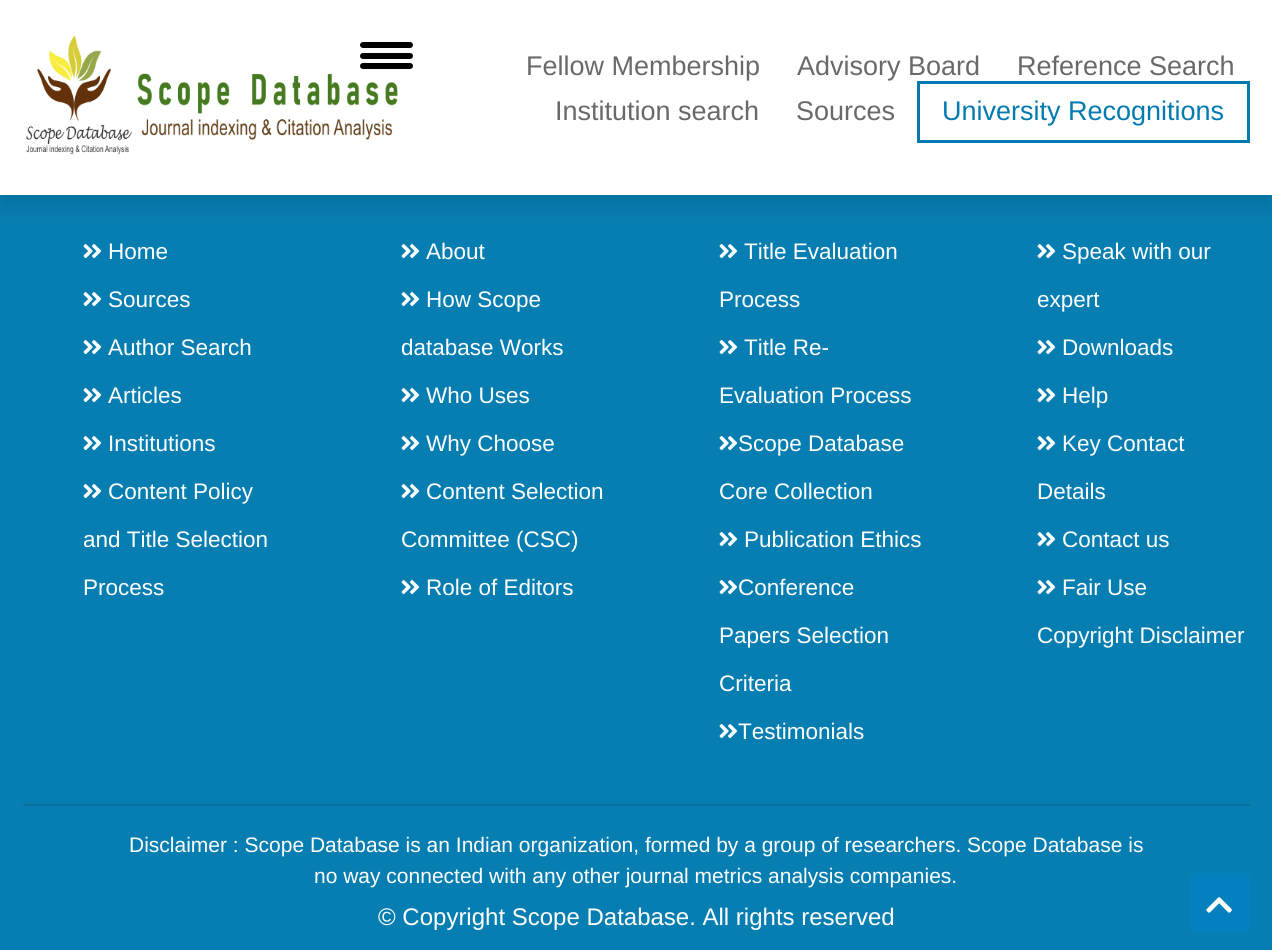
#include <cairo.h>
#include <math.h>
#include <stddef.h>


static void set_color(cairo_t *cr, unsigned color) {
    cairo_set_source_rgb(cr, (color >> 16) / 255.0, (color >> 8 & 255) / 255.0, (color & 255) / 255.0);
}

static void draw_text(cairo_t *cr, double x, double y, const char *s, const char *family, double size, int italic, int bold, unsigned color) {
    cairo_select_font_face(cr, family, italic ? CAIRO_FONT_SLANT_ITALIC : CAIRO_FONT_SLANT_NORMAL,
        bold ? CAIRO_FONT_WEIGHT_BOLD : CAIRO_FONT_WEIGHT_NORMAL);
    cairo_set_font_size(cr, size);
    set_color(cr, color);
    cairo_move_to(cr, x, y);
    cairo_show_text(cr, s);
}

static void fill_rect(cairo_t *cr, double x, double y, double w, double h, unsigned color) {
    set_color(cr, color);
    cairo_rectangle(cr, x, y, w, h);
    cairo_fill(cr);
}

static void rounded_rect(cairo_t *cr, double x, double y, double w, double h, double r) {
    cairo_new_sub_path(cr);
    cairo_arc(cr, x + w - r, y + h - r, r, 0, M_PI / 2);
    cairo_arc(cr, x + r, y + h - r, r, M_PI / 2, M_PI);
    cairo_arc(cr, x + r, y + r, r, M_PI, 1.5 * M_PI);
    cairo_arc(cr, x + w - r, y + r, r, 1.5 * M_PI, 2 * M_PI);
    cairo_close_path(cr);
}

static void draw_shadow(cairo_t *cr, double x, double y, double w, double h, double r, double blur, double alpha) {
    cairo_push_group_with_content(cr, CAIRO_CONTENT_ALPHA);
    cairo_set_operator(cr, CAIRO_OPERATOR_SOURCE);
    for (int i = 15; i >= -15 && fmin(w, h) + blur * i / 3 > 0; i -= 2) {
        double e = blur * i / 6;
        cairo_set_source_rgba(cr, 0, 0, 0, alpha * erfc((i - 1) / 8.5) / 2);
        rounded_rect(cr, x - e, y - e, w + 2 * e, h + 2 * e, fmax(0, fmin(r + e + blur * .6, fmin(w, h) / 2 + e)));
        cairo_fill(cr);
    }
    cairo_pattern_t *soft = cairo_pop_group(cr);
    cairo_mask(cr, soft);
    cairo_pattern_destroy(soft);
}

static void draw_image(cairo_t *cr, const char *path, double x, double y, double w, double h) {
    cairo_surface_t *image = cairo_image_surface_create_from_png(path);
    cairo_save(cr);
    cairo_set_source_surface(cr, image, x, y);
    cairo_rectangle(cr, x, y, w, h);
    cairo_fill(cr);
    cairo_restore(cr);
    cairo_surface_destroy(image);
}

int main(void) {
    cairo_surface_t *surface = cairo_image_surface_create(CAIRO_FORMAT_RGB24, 1272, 950);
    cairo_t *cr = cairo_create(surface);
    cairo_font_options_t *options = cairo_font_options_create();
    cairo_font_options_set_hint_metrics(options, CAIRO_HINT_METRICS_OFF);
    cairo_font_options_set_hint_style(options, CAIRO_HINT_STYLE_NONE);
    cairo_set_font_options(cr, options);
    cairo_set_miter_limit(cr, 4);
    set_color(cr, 0x077EB1);
    cairo_paint(cr);
    set_color(cr, 0x000000);
    draw_shadow(cr, 0, 11, 1272, 195, 0, 10, 0.1);
    fill_rect(cr, 0, 0, 1272, 195, 0xFFFFFF);
    draw_image(cr, "assets/img1.png", 26, 35, 372, 120);
    set_color(cr, 0x000000);
    rounded_rect(cr, 360, 42, 53, 6, 3);
    cairo_fill(cr);
    rounded_rect(cr, 360, 53, 53, 6, 3);
    cairo_fill(cr);
    rounded_rect(cr, 360, 63, 53, 6, 3);
    cairo_fill(cr);
    draw_text(cr, 526, 75, "Fellow Membership", "Liberation Sans", 27, 0, 0, 0x696969);
    draw_text(cr, 797, 75, "Advisory Board", "Liberation Sans", 27, 0, 0, 0x696969);
    draw_text(cr, 1017, 75, "Reference Search", "Liberation Sans", 27, 0, 0, 0x696969);
    draw_text(cr, 555, 120, "Institution search", "Liberation Sans", 27, 0, 0, 0x696969);
    draw_text(cr, 796, 120, "Sources", "Liberation Sans", 27, 0, 0, 0x696969);
    cairo_rectangle(cr, 918.5, 82.5, 330, 59);
    set_color(cr, 0x007AAF);
    cairo_set_line_width(cr, 3);
    cairo_stroke(cr);
    draw_text(cr, 942, 120, "University Recognitions", "Liberation Sans", 27, 0, 0, 0x007AAF);
    draw_image(cr, "assets/img2.png", 83, 244, 19, 15);
    draw_text(cr, 108, 259, "Home", "Liberation Sans", 22.5, 0, 0, 0xFFFFFF);
    draw_image(cr, "assets/img2.png", 83, 292, 19, 15);
    draw_text(cr, 108, 307, "Sources", "Liberation Sans", 22.5, 0, 0, 0xFFFFFF);
    draw_image(cr, "assets/img2.png", 83, 340, 19, 15);
    draw_text(cr, 108, 355, "Author Search", "Liberation Sans", 22.5, 0, 0, 0xFFFFFF);
    draw_image(cr, "assets/img2.png", 83, 388, 19, 15);
    draw_text(cr, 108, 403, "Articles", "Liberation Sans", 22.5, 0, 0, 0xFFFFFF);
    draw_image(cr, "assets/img2.png", 83, 436, 19, 15);
    draw_text(cr, 108, 451, "Institutions", "Liberation Sans", 22.5, 0, 0, 0xFFFFFF);
    draw_image(cr, "assets/img2.png", 83, 484, 19, 15);
    draw_text(cr, 108, 499, "Content Policy", "Liberation Sans", 22.5, 0, 0, 0xFFFFFF);
    draw_text(cr, 83, 547, "and Title Selection", "Liberation Sans", 22.5, 0, 0, 0xFFFFFF);
    draw_text(cr, 83, 595, "Process", "Liberation Sans", 22.5, 0, 0, 0xFFFFFF);
    draw_image(cr, "assets/img2.png", 401, 244, 19, 15);
    draw_text(cr, 426, 259, "About", "Liberation Sans", 22.5, 0, 0, 0xFFFFFF);
    draw_image(cr, "assets/img2.png", 401, 292, 19, 15);
    draw_text(cr, 426, 307, "How Scope", "Liberation Sans", 22.5, 0, 0, 0xFFFFFF);
    draw_text(cr, 401, 355, "database Works", "Liberation Sans", 22.5, 0, 0, 0xFFFFFF);
    draw_image(cr, "assets/img2.png", 401, 388, 19, 15);
    draw_text(cr, 426, 403, "Who Uses", "Liberation Sans", 22.5, 0, 0, 0xFFFFFF);
    draw_image(cr, "assets/img2.png", 401, 436, 19, 15);
    draw_text(cr, 426, 451, "Why Choose", "Liberation Sans", 22.5, 0, 0, 0xFFFFFF);
    draw_image(cr, "assets/img2.png", 401, 484, 19, 15);
    draw_text(cr, 426, 499, "Content Selection", "Liberation Sans", 22.5, 0, 0, 0xFFFFFF);
    draw_text(cr, 401, 547, "Committee (CSC)", "Liberation Sans", 22.5, 0, 0, 0xFFFFFF);
    draw_image(cr, "assets/img2.png", 401, 580, 19, 15);
    draw_text(cr, 426, 595, "Role of Editors", "Liberation Sans", 22.5, 0, 0, 0xFFFFFF);
    draw_image(cr, "assets/img2.png", 719, 244, 19, 15);
    draw_text(cr, 744, 259, "Title Evaluation", "Liberation Sans", 22.5, 0, 0, 0xFFFFFF);
    draw_text(cr, 719, 307, "Process", "Liberation Sans", 22.5, 0, 0, 0xFFFFFF);
    draw_image(cr, "assets/img2.png", 719, 340, 19, 15);
    draw_text(cr, 744, 355, "Title Re-", "Liberation Sans", 22.5, 0, 0, 0xFFFFFF);
    draw_text(cr, 719, 403, "Evaluation Process", "Liberation Sans", 22.5, 0, 0, 0xFFFFFF);
    draw_image(cr, "assets/img2.png", 719, 436, 19, 15);
    draw_text(cr, 738, 451, "Scope Database", "Liberation Sans", 22.5, 0, 0, 0xFFFFFF);
    draw_text(cr, 719, 499, "Core Collection", "Liberation Sans", 22.5, 0, 0, 0xFFFFFF);
    draw_image(cr, "assets/img2.png", 719, 532, 19, 15);
    draw_text(cr, 744, 547, "Publication Ethics", "Liberation Sans", 22.5, 0, 0, 0xFFFFFF);
    draw_image(cr, "assets/img2.png", 719, 580, 19, 15);
    draw_text(cr, 738, 595, "Conference", "Liberation Sans", 22.5, 0, 0, 0xFFFFFF);
    draw_text(cr, 719, 643, "Papers Selection", "Liberation Sans", 22.5, 0, 0, 0xFFFFFF);
    draw_text(cr, 719, 691, "Criteria", "Liberation Sans", 22.5, 0, 0, 0xFFFFFF);
    draw_image(cr, "assets/img2.png", 719, 724, 19, 15);
    draw_text(cr, 738, 739, "Testimonials", "Liberation Sans", 22.5, 0, 0, 0xFFFFFF);
    draw_image(cr, "assets/img2.png", 1037, 244, 19, 15);
    draw_text(cr, 1062, 259, "Speak with our", "Liberation Sans", 22.5, 0, 0, 0xFFFFFF);
    draw_text(cr, 1037, 307, "expert", "Liberation Sans", 22.5, 0, 0, 0xFFFFFF);
    draw_image(cr, "assets/img2.png", 1037, 340, 19, 15);
    draw_text(cr, 1062, 355, "Downloads", "Liberation Sans", 22.5, 0, 0, 0xFFFFFF);
    draw_image(cr, "assets/img2.png", 1037, 388, 19, 15);
    draw_text(cr, 1062, 403, "Help", "Liberation Sans", 22.5, 0, 0, 0xFFFFFF);
    draw_image(cr, "assets/img2.png", 1037, 436, 19, 15);
    draw_text(cr, 1062, 451, "Key Contact", "Liberation Sans", 22.5, 0, 0, 0xFFFFFF);
    draw_text(cr, 1037, 499, "Details", "Liberation Sans", 22.5, 0, 0, 0xFFFFFF);
    draw_image(cr, "assets/img2.png", 1037, 532, 19, 15);
    draw_text(cr, 1062, 547, "Contact us", "Liberation Sans", 22.5, 0, 0, 0xFFFFFF);
    draw_image(cr, "assets/img2.png", 1037, 580, 19, 15);
    draw_text(cr, 1062, 595, "Fair Use", "Liberation Sans", 22.5, 0, 0, 0xFFFFFF);
    draw_text(cr, 1037, 643, "Copyright Disclaimer", "Liberation Sans", 22.5, 0, 0, 0xFFFFFF);
    fill_rect(cr, 23, 804, 1227, 2, 0x06719F);
    draw_text(cr, 129, 852, "Disclaimer : Scope Database is an Indian organization, formed by a group of researchers. Scope Database is", "Liberation Sans", 21, 0, 0, 0xFFFFFF);
    draw_text(cr, 314, 883, "no way connected with any other journal metrics analysis companies.", "Liberation Sans", 21, 0, 0, 0xFFFFFF);
    draw_text(cr, 378, 925, "© Copyright Scope Database. All rights reserved", "Liberation Sans", 24, 0, 0, 0xFFFFFF);
    set_color(cr, 0x0381BE);
    rounded_rect(cr, 1190, 873, 60, 60, 3);
    cairo_fill(cr);
    draw_image(cr, "assets/img3.png", 1206, 897, 26, 16);
    cairo_surface_write_to_png(surface, "output.png");
    cairo_font_options_destroy(options);
    cairo_destroy(cr);
    cairo_surface_destroy(surface);
    return 0;
}
